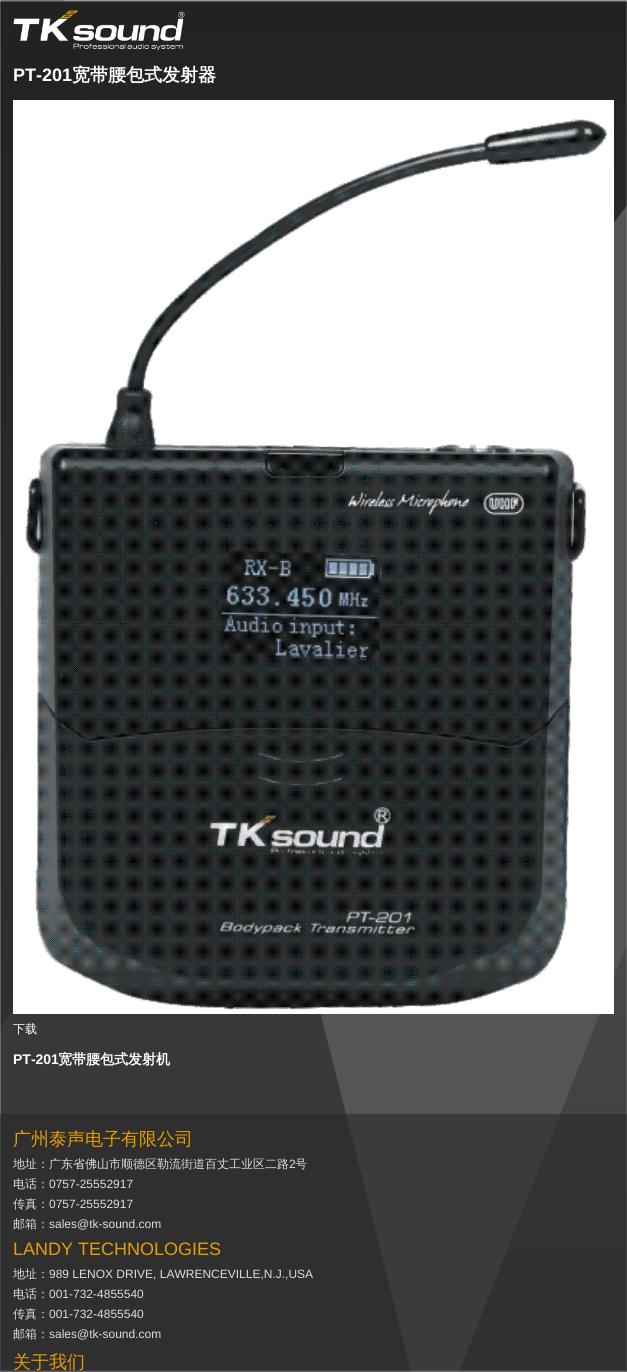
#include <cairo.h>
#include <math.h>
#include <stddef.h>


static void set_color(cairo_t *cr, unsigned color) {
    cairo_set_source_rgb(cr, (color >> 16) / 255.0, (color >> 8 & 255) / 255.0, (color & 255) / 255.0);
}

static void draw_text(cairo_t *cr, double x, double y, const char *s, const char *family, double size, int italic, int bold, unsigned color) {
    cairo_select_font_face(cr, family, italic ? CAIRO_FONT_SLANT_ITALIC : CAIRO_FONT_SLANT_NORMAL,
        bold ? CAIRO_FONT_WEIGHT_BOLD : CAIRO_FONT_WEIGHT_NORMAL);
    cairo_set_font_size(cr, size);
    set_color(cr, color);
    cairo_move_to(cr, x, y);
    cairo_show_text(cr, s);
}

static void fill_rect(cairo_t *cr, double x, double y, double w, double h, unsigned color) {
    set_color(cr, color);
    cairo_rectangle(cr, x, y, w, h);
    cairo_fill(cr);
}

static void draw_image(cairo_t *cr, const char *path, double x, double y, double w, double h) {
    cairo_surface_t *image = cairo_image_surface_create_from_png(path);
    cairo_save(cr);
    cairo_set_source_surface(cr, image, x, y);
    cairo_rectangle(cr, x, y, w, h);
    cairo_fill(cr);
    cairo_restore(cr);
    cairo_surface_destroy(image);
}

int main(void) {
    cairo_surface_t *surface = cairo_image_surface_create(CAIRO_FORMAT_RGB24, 627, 1372);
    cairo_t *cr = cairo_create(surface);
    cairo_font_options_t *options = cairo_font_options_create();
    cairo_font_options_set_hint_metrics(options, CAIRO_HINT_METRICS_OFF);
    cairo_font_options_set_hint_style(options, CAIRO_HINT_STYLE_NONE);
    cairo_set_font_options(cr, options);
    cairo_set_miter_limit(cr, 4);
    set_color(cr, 0xEEEEEE);
    cairo_paint(cr);
    draw_image(cr, "assets/img1.png", 0, 0, 627, 1372);
    draw_image(cr, "assets/img2.png", 13, 10, 172, 40);
    draw_text(cr, 13, 81, "PT-201", "Liberation Sans", 18, 0, 1, 0xFFFFFF);
    draw_text(cr, 72, 81, "宽带腰包式发射器", "WenQuanYi Zen Hei", 18, 0, 1, 0xFFFFFF);
    fill_rect(cr, 13, 100, 601, 914, 0xFFFFFF);
    draw_image(cr, "assets/img3.png", 25, 119, 583, 891);
    draw_text(cr, 13, 1033, "下载", "WenQuanYi Zen Hei Medium", 12, 0, 0, 0xFFFFFF);
    draw_text(cr, 13, 1064, "PT-201", "Liberation Sans", 14, 0, 1, 0xFFFFFF);
    draw_text(cr, 58, 1064, "宽带腰包式发射机", "WenQuanYi Zen Hei", 14, 0, 1, 0xFFFFFF);
    cairo_set_source_rgba(cr, 0.165, 0.165, 0.165, 0.6);
    cairo_rectangle(cr, 0, 1114, 627, 258);
    cairo_fill(cr);
    draw_text(cr, 13, 1145, "广州泰声电子有限公司", "WenQuanYi Zen Hei Medium", 18, 0, 0, 0xE49E00);
    draw_text(cr, 13, 1168, "地址：广东省佛山市顺德区勒流街道百丈工业区二路", "WenQuanYi Zen Hei Medium", 12, 0, 0, 0xDDDDDD);
    draw_text(cr, 289, 1168, "2", "Liberation Sans", 12, 0, 0, 0xDDDDDD);
    draw_text(cr, 295, 1168, "号", "WenQuanYi Zen Hei Medium", 12, 0, 0, 0xDDDDDD);
    draw_text(cr, 13, 1188, "电话：", "WenQuanYi Zen Hei Medium", 12, 0, 0, 0xDDDDDD);
    draw_text(cr, 49, 1188, "0757-25552917", "Liberation Sans", 12, 0, 0, 0xDDDDDD);
    draw_text(cr, 13, 1208, "传真：", "WenQuanYi Zen Hei Medium", 12, 0, 0, 0xDDDDDD);
    draw_text(cr, 49, 1208, "0757-25552917", "Liberation Sans", 12, 0, 0, 0xDDDDDD);
    draw_text(cr, 13, 1228, "邮箱：", "WenQuanYi Zen Hei Medium", 12, 0, 0, 0xDDDDDD);
    draw_text(cr, 49, 1228, "sales@tk-sound.com", "Liberation Sans", 12, 0, 0, 0xDDDDDD);
    draw_text(cr, 13, 1255, "LANDY TECHNOLOGIES", "Liberation Sans", 18, 0, 0, 0xE49E00);
    draw_text(cr, 13, 1278, "地址：", "WenQuanYi Zen Hei Medium", 12, 0, 0, 0xDDDDDD);
    draw_text(cr, 49, 1278, "989 LENOX DRIVE, LAWRENCEVILLE,N.J.,USA", "Liberation Sans", 12, 0, 0, 0xDDDDDD);
    draw_text(cr, 13, 1298, "电话：", "WenQuanYi Zen Hei Medium", 12, 0, 0, 0xDDDDDD);
    draw_text(cr, 49, 1298, "001-732-4855540", "Liberation Sans", 12, 0, 0, 0xDDDDDD);
    draw_text(cr, 13, 1318, "传真：", "WenQuanYi Zen Hei Medium", 12, 0, 0, 0xDDDDDD);
    draw_text(cr, 49, 1318, "001-732-4855540", "Liberation Sans", 12, 0, 0, 0xDDDDDD);
    draw_text(cr, 13, 1338, "邮箱：", "WenQuanYi Zen Hei Medium", 12, 0, 0, 0xDDDDDD);
    draw_text(cr, 49, 1338, "sales@tk-sound.com", "Liberation Sans", 12, 0, 0, 0xDDDDDD);
    draw_text(cr, 13, 1368, "关于我们", "WenQuanYi Zen Hei Medium", 18, 0, 0, 0xE49E00);
    cairo_surface_write_to_png(surface, "output.png");
    cairo_font_options_destroy(options);
    cairo_destroy(cr);
    cairo_surface_destroy(surface);
    return 0;
}
